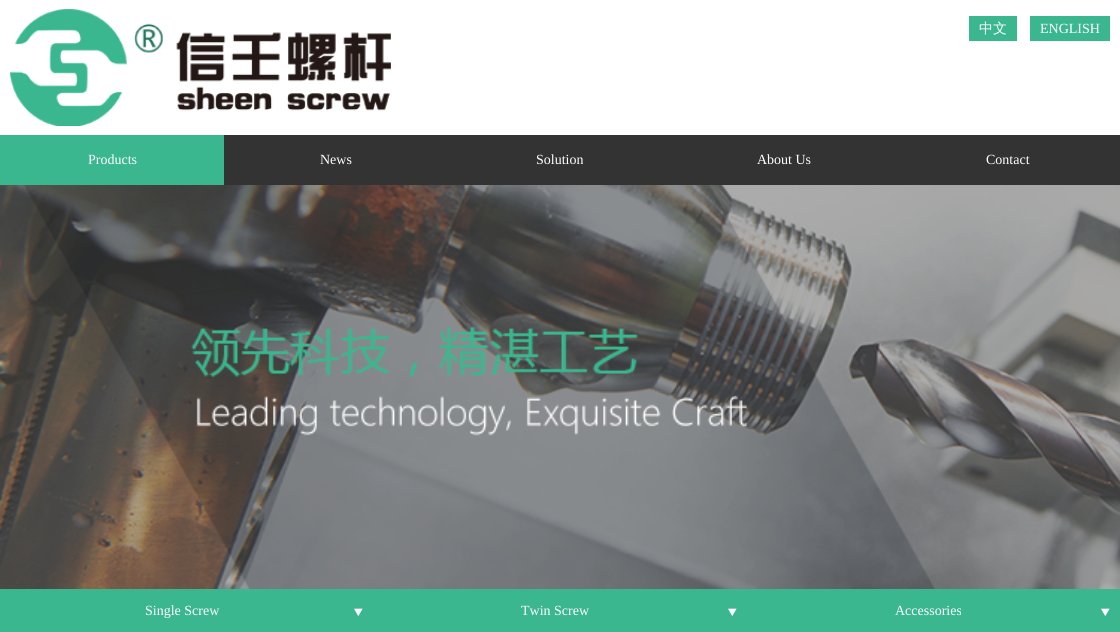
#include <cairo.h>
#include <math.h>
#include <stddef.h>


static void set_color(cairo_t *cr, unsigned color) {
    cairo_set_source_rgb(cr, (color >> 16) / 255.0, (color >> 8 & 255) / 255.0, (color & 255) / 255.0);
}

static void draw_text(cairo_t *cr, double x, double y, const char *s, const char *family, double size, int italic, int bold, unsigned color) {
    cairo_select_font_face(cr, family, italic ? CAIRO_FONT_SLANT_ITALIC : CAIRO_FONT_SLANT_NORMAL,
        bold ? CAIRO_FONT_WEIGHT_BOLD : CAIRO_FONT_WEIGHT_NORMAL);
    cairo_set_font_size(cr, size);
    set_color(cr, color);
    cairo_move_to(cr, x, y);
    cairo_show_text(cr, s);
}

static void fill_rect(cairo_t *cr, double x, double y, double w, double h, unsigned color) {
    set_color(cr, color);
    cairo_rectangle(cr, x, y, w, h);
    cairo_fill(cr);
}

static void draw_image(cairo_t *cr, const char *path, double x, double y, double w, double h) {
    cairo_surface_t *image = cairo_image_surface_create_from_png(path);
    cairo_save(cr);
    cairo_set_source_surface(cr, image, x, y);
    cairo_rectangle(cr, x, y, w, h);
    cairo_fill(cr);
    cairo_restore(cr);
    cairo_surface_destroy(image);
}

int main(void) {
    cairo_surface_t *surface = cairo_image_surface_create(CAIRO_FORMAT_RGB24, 1120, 632);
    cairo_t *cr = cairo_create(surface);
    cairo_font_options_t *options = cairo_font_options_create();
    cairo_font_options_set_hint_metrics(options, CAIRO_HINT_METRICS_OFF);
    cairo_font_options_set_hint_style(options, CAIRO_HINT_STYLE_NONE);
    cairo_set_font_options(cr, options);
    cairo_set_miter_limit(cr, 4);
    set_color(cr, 0xFFFFFF);
    cairo_paint(cr);
    fill_rect(cr, 969, 16, 48, 25, 0x3AB78F);
    draw_text(cr, 979, 33, "中文", "WenQuanYi Zen Hei Medium", 14, 0, 0, 0xFFFFFF);
    fill_rect(cr, 1030, 16, 80, 25, 0x3AB78F);
    draw_text(cr, 1040, 33, "ENGLISH", "Liberation Serif", 14, 0, 0, 0xFFFFFF);
    draw_image(cr, "assets/img1.png", 10, 9, 381, 117);
    fill_rect(cr, 0, 135, 224, 50, 0x3AB78F);
    draw_text(cr, 88, 164, "Products", "Liberation Serif", 14, 0, 0, 0xFFFFFF);
    fill_rect(cr, 224, 135, 896, 50, 0x333333);
    draw_text(cr, 320, 164, "News", "Liberation Serif", 14, 0, 0, 0xFFFFFF);
    draw_text(cr, 536, 164, "Solution", "Liberation Serif", 14, 0, 0, 0xFFFFFF);
    draw_text(cr, 757, 164, "About Us", "Liberation Serif", 14, 0, 0, 0xFFFFFF);
    draw_text(cr, 986, 164, "Contact", "Liberation Serif", 14, 0, 0, 0xFFFFFF);
    draw_image(cr, "assets/img2.png", 0, 185, 1120, 404);
    fill_rect(cr, 0, 589, 1120, 43, 0x3AB78F);
    draw_image(cr, "assets/img3.png", 354, 608, 9, 8);
    draw_text(cr, 145, 615, "Single Screw", "Liberation Serif", 14, 0, 0, 0xFFFFFF);
    draw_image(cr, "assets/img3.png", 728, 608, 9, 8);
    draw_text(cr, 521, 615, "Twin Screw", "Liberation Serif", 14, 0, 0, 0xFFFFFF);
    draw_image(cr, "assets/img3.png", 1101, 608, 9, 8);
    draw_text(cr, 895, 615, "Accessories", "Liberation Serif", 14, 0, 0, 0xFFFFFF);
    cairo_surface_write_to_png(surface, "output.png");
    cairo_font_options_destroy(options);
    cairo_destroy(cr);
    cairo_surface_destroy(surface);
    return 0;
}
